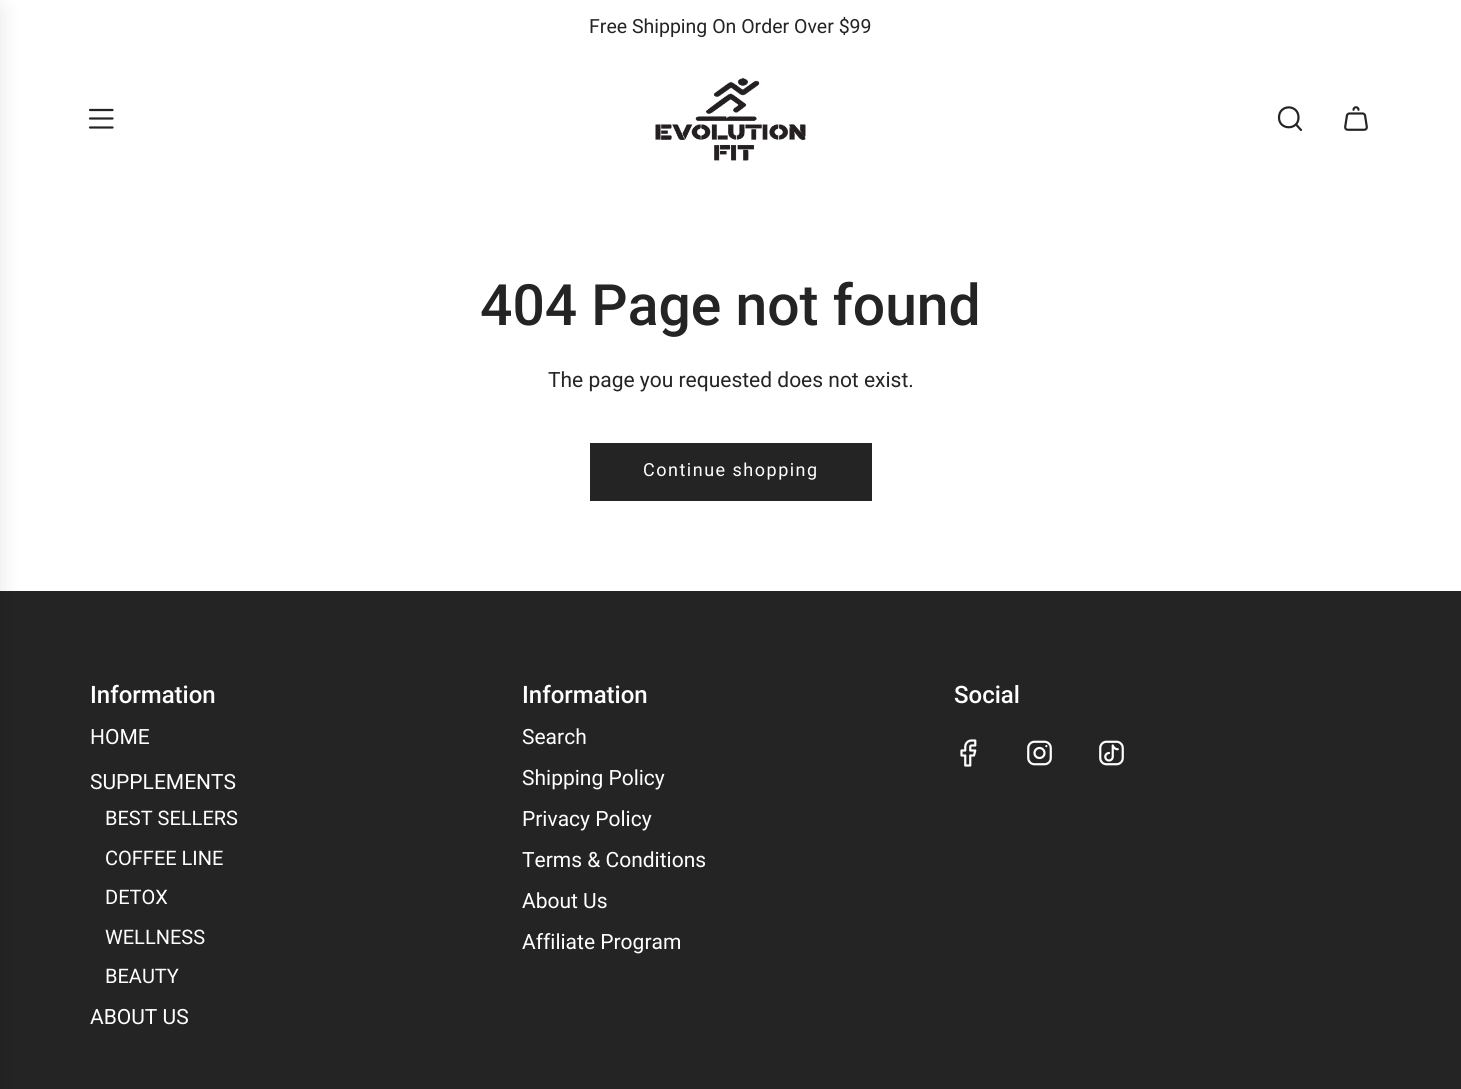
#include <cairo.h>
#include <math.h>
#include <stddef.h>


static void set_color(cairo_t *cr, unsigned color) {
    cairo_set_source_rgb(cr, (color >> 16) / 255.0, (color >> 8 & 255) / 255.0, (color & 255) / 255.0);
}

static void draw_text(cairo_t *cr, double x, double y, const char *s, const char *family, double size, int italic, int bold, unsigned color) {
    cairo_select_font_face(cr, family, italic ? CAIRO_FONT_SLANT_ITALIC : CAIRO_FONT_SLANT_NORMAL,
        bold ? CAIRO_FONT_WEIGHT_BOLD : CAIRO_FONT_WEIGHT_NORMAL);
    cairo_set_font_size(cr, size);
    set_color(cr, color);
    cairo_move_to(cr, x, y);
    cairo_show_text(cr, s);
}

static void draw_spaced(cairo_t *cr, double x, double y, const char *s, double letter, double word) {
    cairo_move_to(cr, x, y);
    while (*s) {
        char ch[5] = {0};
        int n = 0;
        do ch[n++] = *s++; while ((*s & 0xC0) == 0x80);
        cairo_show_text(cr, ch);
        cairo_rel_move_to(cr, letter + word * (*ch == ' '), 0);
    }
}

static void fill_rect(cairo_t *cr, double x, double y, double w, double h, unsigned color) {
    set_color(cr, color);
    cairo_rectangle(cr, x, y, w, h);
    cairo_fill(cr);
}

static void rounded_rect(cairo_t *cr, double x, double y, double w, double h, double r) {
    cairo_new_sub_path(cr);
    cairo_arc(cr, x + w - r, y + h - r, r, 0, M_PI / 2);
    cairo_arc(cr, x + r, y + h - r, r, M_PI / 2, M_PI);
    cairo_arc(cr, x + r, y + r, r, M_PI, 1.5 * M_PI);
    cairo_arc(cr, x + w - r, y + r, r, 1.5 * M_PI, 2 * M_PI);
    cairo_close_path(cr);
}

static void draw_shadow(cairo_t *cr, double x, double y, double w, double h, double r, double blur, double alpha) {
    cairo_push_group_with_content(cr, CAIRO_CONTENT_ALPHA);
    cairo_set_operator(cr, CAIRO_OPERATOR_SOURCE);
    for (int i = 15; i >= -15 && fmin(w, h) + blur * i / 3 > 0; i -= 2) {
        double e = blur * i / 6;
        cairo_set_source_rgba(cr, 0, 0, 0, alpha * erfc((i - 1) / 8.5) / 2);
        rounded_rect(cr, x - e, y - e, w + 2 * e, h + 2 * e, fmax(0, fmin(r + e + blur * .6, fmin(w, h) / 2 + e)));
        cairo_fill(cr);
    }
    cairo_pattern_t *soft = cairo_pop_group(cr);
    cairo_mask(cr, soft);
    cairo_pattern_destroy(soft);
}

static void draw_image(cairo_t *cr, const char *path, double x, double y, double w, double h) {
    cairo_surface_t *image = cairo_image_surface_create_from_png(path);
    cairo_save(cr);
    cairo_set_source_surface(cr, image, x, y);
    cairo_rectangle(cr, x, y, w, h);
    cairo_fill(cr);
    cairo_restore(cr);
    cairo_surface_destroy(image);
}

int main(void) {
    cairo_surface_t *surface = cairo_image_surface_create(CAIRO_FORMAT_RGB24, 1461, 1089);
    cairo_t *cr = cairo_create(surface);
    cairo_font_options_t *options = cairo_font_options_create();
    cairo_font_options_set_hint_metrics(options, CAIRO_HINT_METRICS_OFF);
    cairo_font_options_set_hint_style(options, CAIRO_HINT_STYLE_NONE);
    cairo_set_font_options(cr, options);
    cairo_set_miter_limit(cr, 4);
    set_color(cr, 0xFFFFFF);
    cairo_paint(cr);
    fill_rect(cr, 0, 591, 1461, 498, 0x242424);
    set_color(cr, 0x000000);
    draw_shadow(cr, -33, 8, 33, 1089, 0, 11, 0.1);
    cairo_new_path(cr);
    cairo_move_to(cr, 90, 110);
    cairo_line_to(cr, 112.5, 110);
    cairo_move_to(cr, 90, 118.5);
    cairo_line_to(cr, 112.5, 118.5);
    cairo_move_to(cr, 90, 127.5);
    cairo_line_to(cr, 112.5, 127.5);
    set_color(cr, 0x242424);
    cairo_set_line_width(cr, 2.2);
    cairo_set_line_cap(cr, CAIRO_LINE_CAP_ROUND);
    cairo_set_line_join(cr, CAIRO_LINE_JOIN_ROUND);
    cairo_stroke(cr);
    draw_image(cr, "assets/img1.png", 655, 77, 151, 84);
    cairo_new_path(cr);
    cairo_move_to(cr, 1296.5, 125);
    cairo_line_to(cr, 1301, 130);
    cairo_move_to(cr, 1279, 117.5);
    cairo_curve_to(cr, 1279, 130.5, 1298.5, 130.5, 1298.5, 117.5);
    cairo_curve_to(cr, 1298.5, 104, 1279, 104, 1279, 117.5);
    cairo_close_path(cr);
    cairo_stroke(cr);
    draw_image(cr, "assets/img2.png", 1344, 106, 24, 25);
    draw_text(cr, 589, 33, "Free Shipping On Order Over $99", "Roboto", 19.5, 0, 0, 0x242424);
    draw_text(cr, 480, 325, "404 Page not found", "Roboto Medium", 57, 0, 0, 0x242424);
    draw_text(cr, 548, 387, "The page you requested does not exist.", "Roboto", 21, 0, 0, 0x242424);
    fill_rect(cr, 590, 443, 282, 58, 0x242424);
    cairo_set_font_size(cr, 18);
    set_color(cr, 0xFFFFFF);
    draw_spaced(cr, 643, 476, "Continue shopping", 1.5, 0);
    draw_text(cr, 90, 703, "Information", "Roboto Medium", 24, 0, 0, 0xFFFFFF);
    draw_text(cr, 90, 744, "HOME", "Roboto", 21, 0, 0, 0xFFFFFF);
    draw_text(cr, 90, 789, "SUPPLEMENTS", "Roboto", 21, 0, 0, 0xFFFFFF);
    draw_text(cr, 105, 825, "BEST SELLERS", "Roboto", 20, 0, 0, 0xFFFFFF);
    draw_text(cr, 105, 865, "COFFEE LINE", "Roboto", 20, 0, 0, 0xFFFFFF);
    draw_text(cr, 105, 904, "DETOX", "Roboto", 20, 0, 0, 0xFFFFFF);
    draw_text(cr, 105, 944, "WELLNESS", "Roboto", 20, 0, 0, 0xFFFFFF);
    draw_text(cr, 105, 983, "BEAUTY", "Roboto", 20, 0, 0, 0xFFFFFF);
    draw_text(cr, 90, 1024, "ABOUT US", "Roboto", 21, 0, 0, 0xFFFFFF);
    draw_text(cr, 522, 703, "Information", "Roboto Medium", 24, 0, 0, 0xFFFFFF);
    draw_text(cr, 522, 744, "Search", "Roboto", 21, 0, 0, 0xFFFFFF);
    draw_text(cr, 522, 785, "Shipping Policy", "Roboto", 21, 0, 0, 0xFFFFFF);
    draw_text(cr, 522, 826, "Privacy Policy", "Roboto", 21, 0, 0, 0xFFFFFF);
    draw_text(cr, 522, 867, "Terms & Conditions", "Roboto", 21, 0, 0, 0xFFFFFF);
    draw_text(cr, 522, 908, "About Us", "Roboto", 21, 0, 0, 0xFFFFFF);
    draw_text(cr, 522, 949, "Affiliate Program", "Roboto", 21, 0, 0, 0xFFFFFF);
    draw_text(cr, 954, 703, "Social", "Roboto Medium", 24, 0, 0, 0xFFFFFF);
    draw_image(cr, "assets/img3.png", 960, 739, 17, 28);
    draw_image(cr, "assets/img4.png", 1027, 740, 25, 26);
    draw_image(cr, "assets/img5.png", 1099, 740, 25, 26);
    cairo_surface_write_to_png(surface, "output.png");
    cairo_font_options_destroy(options);
    cairo_destroy(cr);
    cairo_surface_destroy(surface);
    return 0;
}
